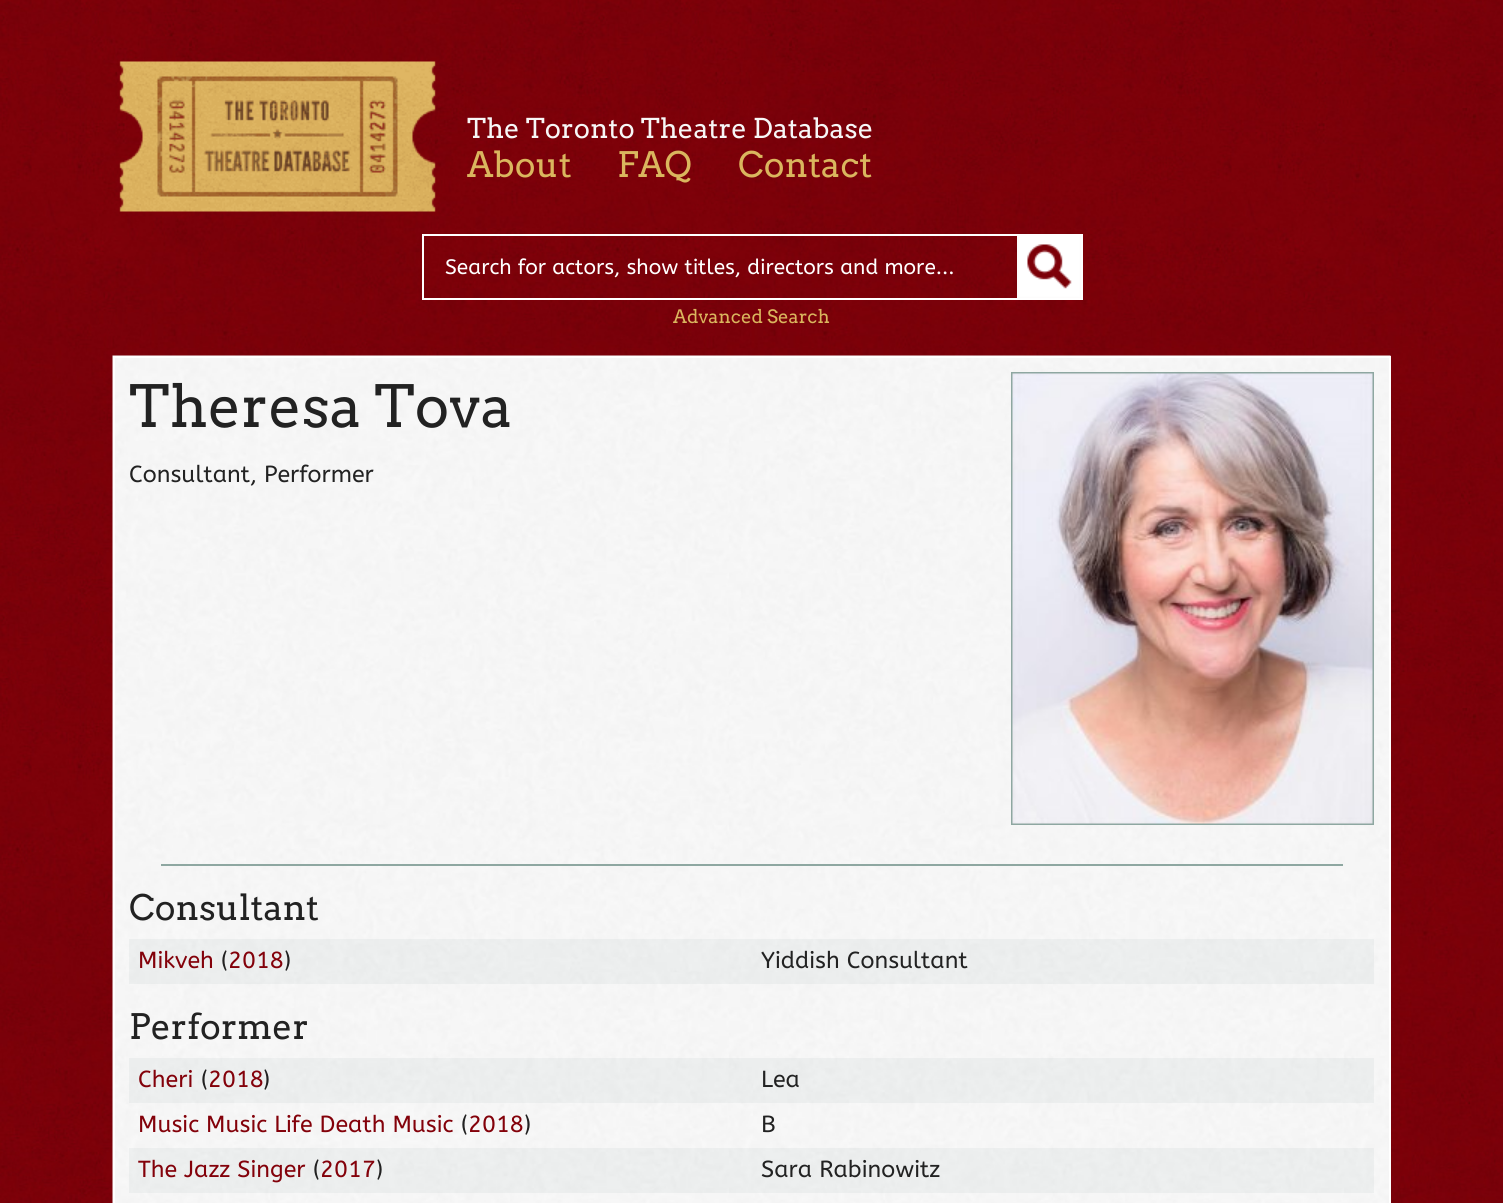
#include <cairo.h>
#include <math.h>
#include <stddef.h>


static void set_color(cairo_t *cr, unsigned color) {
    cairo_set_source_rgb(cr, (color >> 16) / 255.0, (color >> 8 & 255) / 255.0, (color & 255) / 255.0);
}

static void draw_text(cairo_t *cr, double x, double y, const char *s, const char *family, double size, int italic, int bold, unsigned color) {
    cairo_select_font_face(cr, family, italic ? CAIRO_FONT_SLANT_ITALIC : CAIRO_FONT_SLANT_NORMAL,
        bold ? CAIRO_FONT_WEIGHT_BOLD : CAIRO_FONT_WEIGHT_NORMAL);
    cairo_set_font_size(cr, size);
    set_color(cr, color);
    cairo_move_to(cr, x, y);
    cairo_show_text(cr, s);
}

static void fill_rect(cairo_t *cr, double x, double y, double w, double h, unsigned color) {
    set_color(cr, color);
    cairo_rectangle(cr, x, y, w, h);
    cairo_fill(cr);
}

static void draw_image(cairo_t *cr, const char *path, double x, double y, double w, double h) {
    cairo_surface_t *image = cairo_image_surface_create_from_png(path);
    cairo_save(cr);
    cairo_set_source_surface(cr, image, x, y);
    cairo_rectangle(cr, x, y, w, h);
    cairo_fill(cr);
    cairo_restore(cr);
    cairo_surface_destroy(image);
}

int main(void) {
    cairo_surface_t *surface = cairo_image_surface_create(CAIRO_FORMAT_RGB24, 1503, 1203);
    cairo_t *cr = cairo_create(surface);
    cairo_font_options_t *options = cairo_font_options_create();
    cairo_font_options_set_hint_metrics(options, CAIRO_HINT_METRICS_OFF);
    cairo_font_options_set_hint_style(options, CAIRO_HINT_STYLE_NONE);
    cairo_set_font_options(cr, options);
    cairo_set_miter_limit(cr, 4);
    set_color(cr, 0xFFFFFF);
    cairo_paint(cr);
    draw_image(cr, "assets/img1.png", 0, 0, 1503, 1203);
    draw_image(cr, "assets/img2.png", 119, 61, 317, 151);
    draw_text(cr, 467, 138, "The Toronto Theatre Database", "Arvo", 27.25, 0, 0, 0xF7F7F7);
    draw_text(cr, 467, 177, "About", "Arvo", 35, 0, 0, 0xDAB65E);
    draw_text(cr, 617, 177, "FAQ", "Arvo", 35, 0, 0, 0xDAB65E);
    draw_text(cr, 738, 177, "Contact", "Arvo", 35, 0, 0, 0xDAB65E);
    draw_image(cr, "assets/img3.png", 1017, 236, 64, 62);
    cairo_rectangle(cr, 423, 235, 659, 64);
    set_color(cr, 0xFFFFFF);
    cairo_stroke(cr);
    draw_text(cr, 445, 274, "Search for actors, show titles, directors and more...", "ABeeZee", 20.9, 0, 0, 0xFFFFFF);
    draw_text(cr, 673, 323, "Advanced Search", "Arvo", 18.5, 0, 0, 0xDAB65E);
    draw_image(cr, "assets/img4.png", 112, 355, 1279, 848);
    cairo_rectangle(cr, 114, 357, 1276, 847);
    set_color(cr, 0xFFFFFF);
    cairo_stroke(cr);
    draw_text(cr, 129, 427, "Theresa Tova", "Arvo", 58, 0, 0, 0x222222);
    cairo_rectangle(cr, 1012, 373, 361, 451);
    set_color(cr, 0x8EA7A1);
    cairo_stroke(cr);
    draw_image(cr, "assets/img5.png", 1012, 373, 361, 451);
    draw_text(cr, 129, 482, "Consultant, Performer", "ABeeZee", 23.25, 0, 0, 0x222222);
    fill_rect(cr, 161, 864, 1182, 2, 0x8EA7A1);
    draw_text(cr, 129, 920, "Consultant", "Arvo", 35, 0, 0, 0x222222);
    cairo_set_source_rgba(cr, 0.557, 0.655, 0.631, 0.1);
    cairo_rectangle(cr, 129, 939, 1245, 45);
    cairo_fill(cr);
    draw_text(cr, 138, 968, "Mikveh", "ABeeZee", 23.25, 0, 0, 0x83010A);
    draw_text(cr, 221, 968, "(", "ABeeZee", 23.25, 0, 0, 0x222222);
    draw_text(cr, 228, 968, "2018", "ABeeZee", 23.25, 0, 0, 0x83010A);
    draw_text(cr, 284, 968, ")", "ABeeZee", 23.25, 0, 0, 0x222222);
    draw_text(cr, 761, 968, "Yiddish Consultant", "ABeeZee", 23.25, 0, 0, 0x222222);
    draw_text(cr, 129, 1039, "Performer", "Arvo", 35, 0, 0, 0x222222);
    cairo_set_source_rgba(cr, 0.557, 0.655, 0.631, 0.1);
    cairo_rectangle(cr, 129, 1058, 1245, 45);
    cairo_fill(cr);
    draw_text(cr, 138, 1087, "Cheri", "ABeeZee", 23.25, 0, 0, 0x83010A);
    draw_text(cr, 201, 1087, "(", "ABeeZee", 23.25, 0, 0, 0x222222);
    draw_text(cr, 208, 1087, "2018", "ABeeZee", 23.25, 0, 0, 0x83010A);
    draw_text(cr, 263, 1087, ")", "ABeeZee", 23.25, 0, 0, 0x222222);
    draw_text(cr, 761, 1087, "Lea", "ABeeZee", 23.25, 0, 0, 0x222222);
    draw_text(cr, 138, 1132, "Music Music Life Death Music", "ABeeZee", 23.25, 0, 0, 0x83010A);
    draw_text(cr, 461, 1132, "(", "ABeeZee", 23.25, 0, 0, 0x222222);
    draw_text(cr, 468, 1132, "2018", "ABeeZee", 23.25, 0, 0, 0x83010A);
    draw_text(cr, 524, 1132, ")", "ABeeZee", 23.25, 0, 0, 0x222222);
    draw_text(cr, 761, 1132, "B", "ABeeZee", 23.25, 0, 0, 0x222222);
    cairo_set_source_rgba(cr, 0.557, 0.655, 0.631, 0.1);
    cairo_rectangle(cr, 129, 1148, 1245, 45);
    cairo_fill(cr);
    draw_text(cr, 138, 1177, "The Jazz Singer", "ABeeZee", 23.25, 0, 0, 0x83010A);
    draw_text(cr, 313, 1177, "(", "ABeeZee", 23.25, 0, 0, 0x222222);
    draw_text(cr, 320, 1177, "2017", "ABeeZee", 23.25, 0, 0, 0x83010A);
    draw_text(cr, 376, 1177, ")", "ABeeZee", 23.25, 0, 0, 0x222222);
    draw_text(cr, 761, 1177, "Sara Rabinowitz", "ABeeZee", 23.25, 0, 0, 0x222222);
    cairo_surface_write_to_png(surface, "output.png");
    cairo_font_options_destroy(options);
    cairo_destroy(cr);
    cairo_surface_destroy(surface);
    return 0;
}
